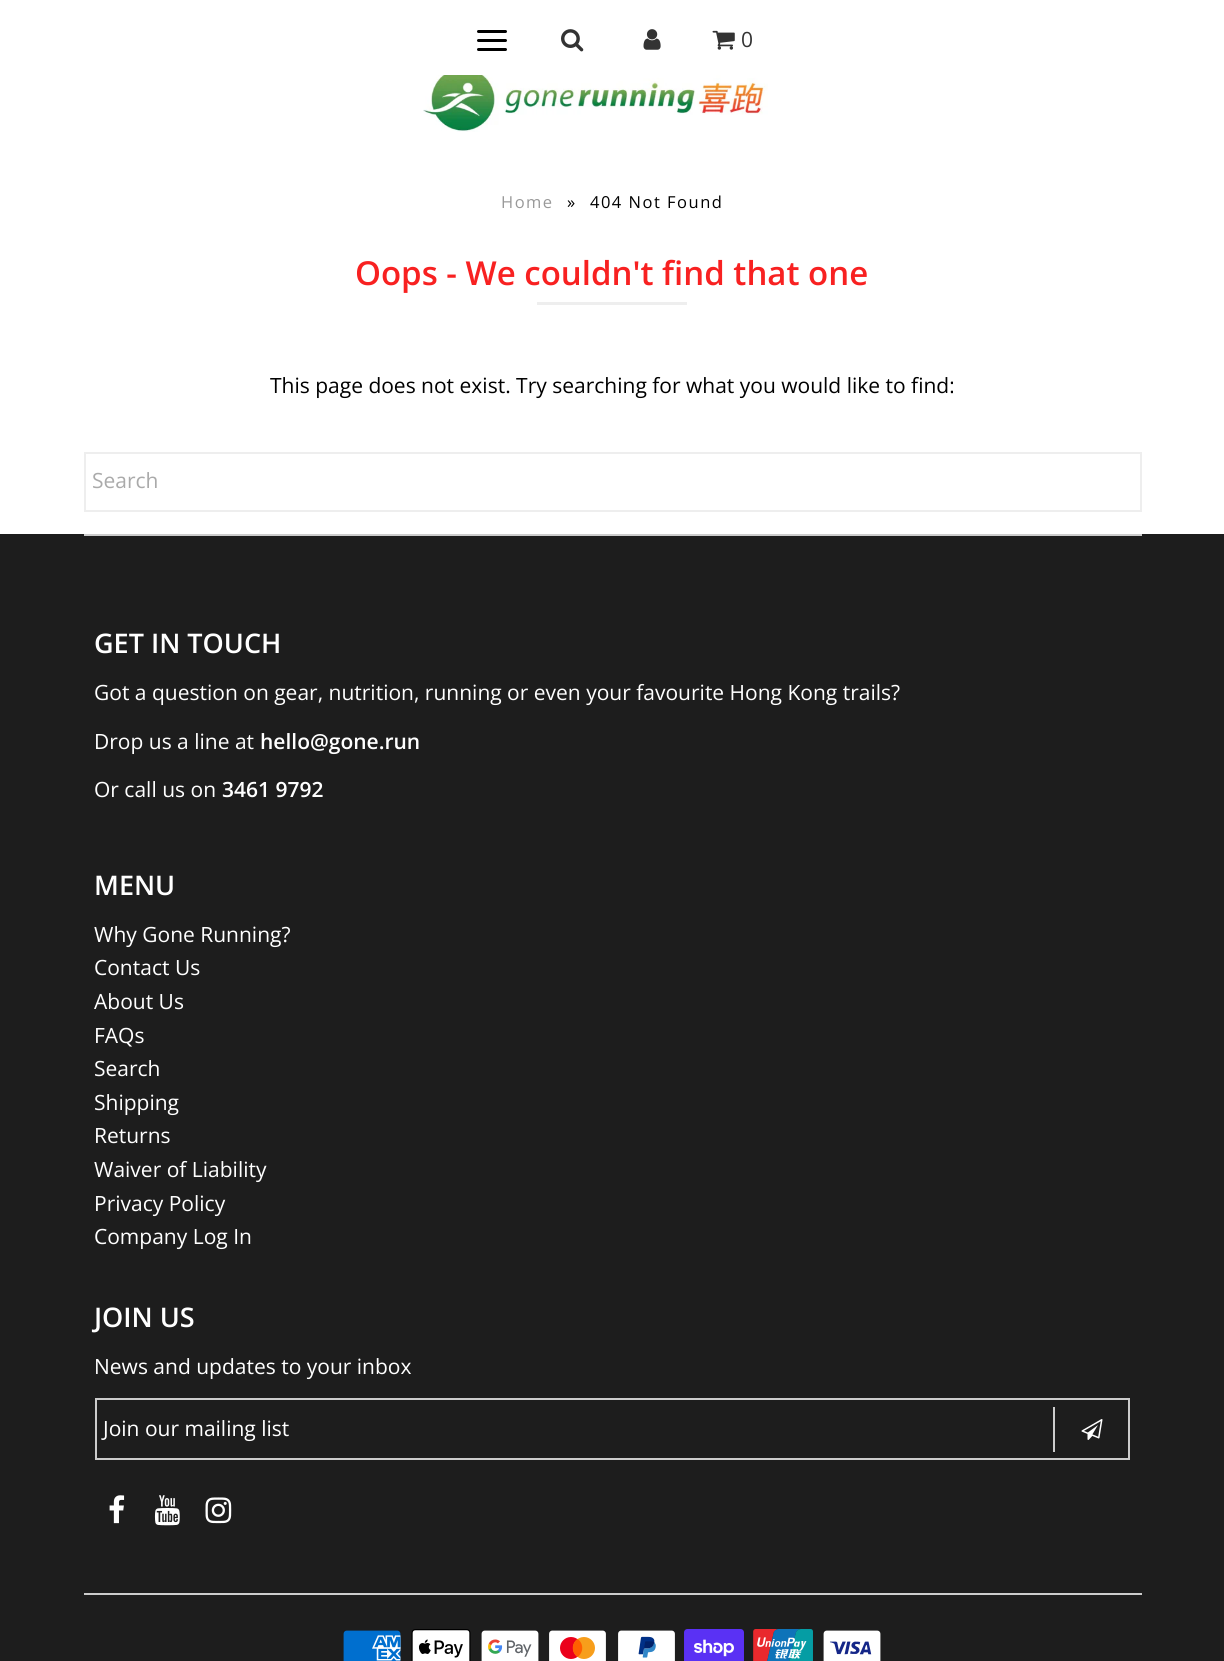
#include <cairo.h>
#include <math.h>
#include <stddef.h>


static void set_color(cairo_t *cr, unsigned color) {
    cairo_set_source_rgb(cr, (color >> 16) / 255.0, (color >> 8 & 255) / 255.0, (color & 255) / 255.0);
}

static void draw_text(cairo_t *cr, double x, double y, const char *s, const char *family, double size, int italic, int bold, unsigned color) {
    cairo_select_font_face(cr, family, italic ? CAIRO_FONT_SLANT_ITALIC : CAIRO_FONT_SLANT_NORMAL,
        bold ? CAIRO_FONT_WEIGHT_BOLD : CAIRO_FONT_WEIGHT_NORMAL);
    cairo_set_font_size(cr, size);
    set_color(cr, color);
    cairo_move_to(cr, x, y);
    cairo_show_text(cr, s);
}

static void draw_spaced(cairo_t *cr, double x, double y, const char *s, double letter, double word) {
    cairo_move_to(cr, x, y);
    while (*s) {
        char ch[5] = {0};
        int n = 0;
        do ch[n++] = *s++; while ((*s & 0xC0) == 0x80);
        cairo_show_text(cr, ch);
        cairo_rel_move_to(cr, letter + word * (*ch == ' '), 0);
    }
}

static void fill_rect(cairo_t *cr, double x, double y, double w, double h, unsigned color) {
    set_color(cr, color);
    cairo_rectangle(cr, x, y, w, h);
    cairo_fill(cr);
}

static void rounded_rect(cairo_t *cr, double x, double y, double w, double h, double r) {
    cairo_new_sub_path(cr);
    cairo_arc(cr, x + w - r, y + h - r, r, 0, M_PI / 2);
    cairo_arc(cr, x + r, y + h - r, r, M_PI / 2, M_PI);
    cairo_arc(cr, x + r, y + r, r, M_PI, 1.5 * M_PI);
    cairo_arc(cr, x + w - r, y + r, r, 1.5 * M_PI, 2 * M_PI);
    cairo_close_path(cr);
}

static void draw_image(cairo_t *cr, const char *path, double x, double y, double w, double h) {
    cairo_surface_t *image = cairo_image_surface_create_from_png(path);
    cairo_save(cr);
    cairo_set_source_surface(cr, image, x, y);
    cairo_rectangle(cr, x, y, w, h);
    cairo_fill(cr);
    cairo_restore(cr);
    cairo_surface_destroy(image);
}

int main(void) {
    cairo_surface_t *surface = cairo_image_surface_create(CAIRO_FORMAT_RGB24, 1224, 1661);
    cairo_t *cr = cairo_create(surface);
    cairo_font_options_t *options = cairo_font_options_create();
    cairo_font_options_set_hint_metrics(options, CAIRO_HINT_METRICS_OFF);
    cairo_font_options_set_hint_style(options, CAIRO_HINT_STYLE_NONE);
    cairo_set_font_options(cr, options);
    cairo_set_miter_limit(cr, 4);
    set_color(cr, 0xFFFFFF);
    cairo_paint(cr);
    set_color(cr, 0x000000);
    rounded_rect(cr, 477, 39, 30, 3, 1.5);
    cairo_fill(cr);
    rounded_rect(cr, 477, 30, 30, 3, 1.5);
    cairo_fill(cr);
    rounded_rect(cr, 477, 48, 30, 3, 1.5);
    cairo_fill(cr);
    draw_image(cr, "assets/img1.png", 561, 29, 23, 23);
    draw_image(cr, "assets/img2.png", 643, 29, 18, 21);
    draw_image(cr, "assets/img3.png", 712, 30, 23, 20);
    draw_text(cr, 741, 47, "0", "Open Sans", 21, 0, 0, 0x333333);
    draw_image(cr, "assets/img4.png", 423, 75, 345, 57);
    cairo_set_font_size(cr, 16.5);
    set_color(cr, 0x999999);
    draw_spaced(cr, 501, 208, "Home", 1.5, 0);
    set_color(cr, 0x000000);
    draw_spaced(cr, 567, 208, "»", 1.5, 0);
    draw_spaced(cr, 590, 208, "404 Not Found", 1.5, 0);
    draw_text(cr, 355, 285, "Oops - We couldn't find that one", "Open Sans SemiBold", 33, 0, 0, 0xF82121);
    fill_rect(cr, 537, 302, 150, 3, 0xEEEEEE);
    draw_text(cr, 270, 393, "This page does not exist. Try searching for what you would like to find:", "Open Sans", 21, 0, 0, 0x000000);
    cairo_rectangle(cr, 85, 453, 1056, 58);
    set_color(cr, 0xEEEEEE);
    cairo_stroke(cr);
    draw_text(cr, 92, 488, "Search", "Open Sans", 21, 0, 0, 0xAAAAAA);
    fill_rect(cr, 0, 534, 1224, 1127, 0x1D1D1D);
    fill_rect(cr, 84, 534, 1058, 2, 0xCCCCCC);
    fill_rect(cr, 84, 1593, 1058, 2, 0xCCCCCC);
    draw_text(cr, 94, 653, "GET IN TOUCH", "Open Sans SemiBold", 27, 0, 0, 0xFFFFFF);
    draw_text(cr, 94, 700, "Got a question on gear, nutrition, running or even your favourite Hong Kong trails?", "Open Sans", 21, 0, 0, 0xFFFFFF);
    draw_text(cr, 94, 749, "Drop us a line at", "Open Sans", 21, 0, 0, 0xFFFFFF);
    draw_text(cr, 260, 749, "hello@gone.run", "Open Sans SemiBold", 21, 0, 0, 0xFFFFFF);
    draw_text(cr, 94, 797, "Or call us on", "Open Sans", 21, 0, 0, 0xFFFFFF);
    draw_text(cr, 222, 797, "3461 9792", "Open Sans SemiBold", 21, 0, 0, 0xFFFFFF);
    draw_text(cr, 94, 895, "MENU", "Open Sans SemiBold", 27, 0, 0, 0xFFFFFF);
    draw_text(cr, 94, 942, "Why Gone Running?", "Open Sans", 21, 0, 0, 0xFFFFFF);
    draw_text(cr, 94, 975, "Contact Us", "Open Sans", 21, 0, 0, 0xFFFFFF);
    draw_text(cr, 94, 1009, "About Us", "Open Sans", 21, 0, 0, 0xFFFFFF);
    draw_text(cr, 94, 1043, "FAQs", "Open Sans", 21, 0, 0, 0xFFFFFF);
    draw_text(cr, 94, 1076, "Search", "Open Sans", 21, 0, 0, 0xFFFFFF);
    draw_text(cr, 94, 1110, "Shipping", "Open Sans", 21, 0, 0, 0xFFFFFF);
    draw_text(cr, 94, 1143, "Returns", "Open Sans", 21, 0, 0, 0xFFFFFF);
    draw_text(cr, 94, 1177, "Waiver of Liability", "Open Sans", 21, 0, 0, 0xFFFFFF);
    draw_text(cr, 94, 1211, "Privacy Policy", "Open Sans", 21, 0, 0, 0xFFFFFF);
    draw_text(cr, 94, 1244, "Company Log In", "Open Sans", 21, 0, 0, 0xFFFFFF);
    draw_text(cr, 94, 1327, "JOIN US", "Open Sans SemiBold", 27, 0, 0, 0xFFFFFF);
    draw_text(cr, 94, 1374, "News and updates to your inbox", "Open Sans", 21, 0, 0, 0xFFFFFF);
    cairo_rectangle(cr, 96, 1399, 1033, 60);
    set_color(cr, 0xCCCCCC);
    cairo_stroke(cr);
    draw_text(cr, 103, 1436, "Join our mailing list", "Open Sans", 21, 0, 0, 0xFFFFFF);
    fill_rect(cr, 1053, 1407, 2, 45, 0xCCCCCC);
    draw_image(cr, "assets/img5.png", 1081, 1419, 22, 21);
    draw_image(cr, "assets/img6.png", 109, 1495, 16, 29);
    draw_image(cr, "assets/img7.png", 154, 1495, 26, 31);
    draw_image(cr, "assets/img8.png", 205, 1497, 27, 27);
    draw_image(cr, "assets/img9.png", 343, 1630, 58, 31);
    draw_image(cr, "assets/img10.png", 411, 1629, 60, 32);
    draw_image(cr, "assets/img11.png", 481, 1630, 58, 31);
    draw_image(cr, "assets/img12.png", 549, 1630, 57, 31);
    draw_image(cr, "assets/img13.png", 618, 1630, 57, 31);
    draw_image(cr, "assets/img14.png", 684, 1629, 60, 32);
    draw_image(cr, "assets/img15.png", 753, 1629, 60, 32);
    draw_image(cr, "assets/img16.png", 823, 1630, 58, 31);
    cairo_surface_write_to_png(surface, "output.png");
    cairo_font_options_destroy(options);
    cairo_destroy(cr);
    cairo_surface_destroy(surface);
    return 0;
}
